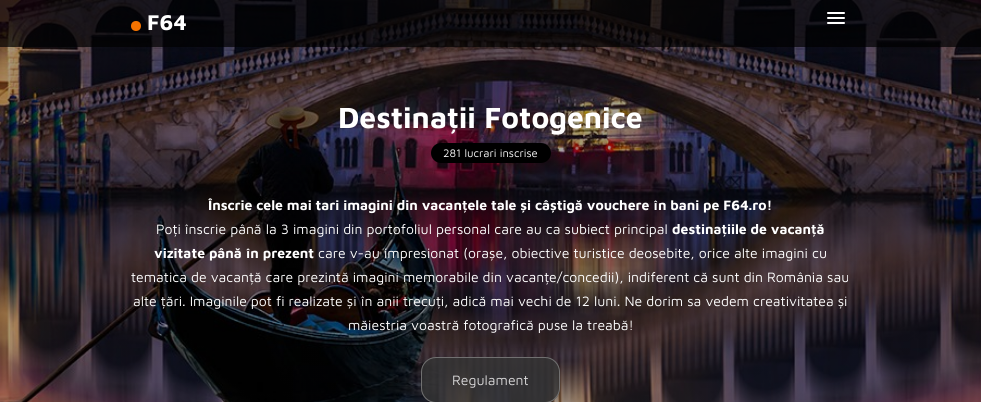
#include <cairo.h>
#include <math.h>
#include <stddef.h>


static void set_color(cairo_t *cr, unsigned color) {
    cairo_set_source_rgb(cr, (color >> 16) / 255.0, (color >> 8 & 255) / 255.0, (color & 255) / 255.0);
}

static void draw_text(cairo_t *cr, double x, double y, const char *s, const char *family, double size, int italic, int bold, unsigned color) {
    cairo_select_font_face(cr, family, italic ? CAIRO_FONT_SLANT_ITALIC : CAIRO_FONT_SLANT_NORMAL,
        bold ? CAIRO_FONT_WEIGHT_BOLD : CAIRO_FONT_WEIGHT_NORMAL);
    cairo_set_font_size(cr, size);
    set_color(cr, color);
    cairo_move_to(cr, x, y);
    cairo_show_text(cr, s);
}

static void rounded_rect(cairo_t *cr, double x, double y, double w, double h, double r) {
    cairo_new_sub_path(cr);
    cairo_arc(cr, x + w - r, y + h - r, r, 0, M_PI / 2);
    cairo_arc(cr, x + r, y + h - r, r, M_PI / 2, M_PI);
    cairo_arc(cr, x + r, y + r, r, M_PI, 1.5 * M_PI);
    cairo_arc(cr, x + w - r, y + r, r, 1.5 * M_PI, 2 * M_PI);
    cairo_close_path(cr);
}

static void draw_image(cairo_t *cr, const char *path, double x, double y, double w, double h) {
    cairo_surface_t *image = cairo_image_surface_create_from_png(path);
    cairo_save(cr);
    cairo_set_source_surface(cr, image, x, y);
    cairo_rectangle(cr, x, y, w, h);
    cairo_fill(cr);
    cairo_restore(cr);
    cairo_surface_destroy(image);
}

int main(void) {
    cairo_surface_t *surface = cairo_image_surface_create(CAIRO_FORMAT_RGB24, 981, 402);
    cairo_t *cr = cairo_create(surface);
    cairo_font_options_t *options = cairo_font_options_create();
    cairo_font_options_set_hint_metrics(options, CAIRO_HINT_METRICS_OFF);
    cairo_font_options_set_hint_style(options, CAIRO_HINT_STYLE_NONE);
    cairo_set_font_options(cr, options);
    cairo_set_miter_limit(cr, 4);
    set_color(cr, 0xFFFFFF);
    cairo_paint(cr);
    draw_image(cr, "assets/img1.png", 0, 0, 981, 402);
    cairo_set_source_rgba(cr, 0, 0, 0, 0.7);
    cairo_rectangle(cr, 0, 0, 981, 47);
    cairo_fill(cr);
    set_color(cr, 0xF47300);
    cairo_arc(cr, 136, 26, 5, 0, 2 * M_PI);
    cairo_fill(cr);
    draw_text(cr, 147, 30, "F64", "Maven Pro", 22, 0, 1, 0xFFFFFF);
    rounded_rect(cr, 827, 12, 18, 2, 1);
    cairo_fill(cr);
    rounded_rect(cr, 827, 17, 18, 2, 1);
    cairo_fill(cr);
    cairo_set_source_rgba(cr, 0, 0, 0, 0.25);
    cairo_new_path(cr);
    cairo_move_to(cr, 827, 23.5);
    cairo_curve_to(cr, 826, 25.5, 830.5, 25, 830.5, 25);
    cairo_line_to(cr, 841.5, 25);
    cairo_curve_to(cr, 841.5, 25, 846, 25.5, 845, 23.5);
    cairo_curve_to(cr, 844, 24.5, 837.5, 24, 836, 24);
    cairo_curve_to(cr, 834.5, 24, 828, 24.5, 827, 23.5);
    cairo_close_path(cr);
    cairo_fill(cr);
    set_color(cr, 0xFFFFFF);
    rounded_rect(cr, 827, 22, 18, 2, 1);
    cairo_fill(cr);
    draw_text(cr, 338, 128, "Destinații Fotogenice", "Maven Pro", 30, 0, 1, 0xFFFFFF);
    set_color(cr, 0x000000);
    rounded_rect(cr, 431, 143, 120, 20, 10);
    cairo_fill(cr);
    draw_text(cr, 443, 157, "281 lucrari inscrise", "Maven Pro", 11.25, 0, 0, 0xFFFFFF);
    draw_text(cr, 208, 210, "Înscrie cele mai tari imagini din vacanțele tale și câștigă vouchere în bani pe F64.ro!", "Maven Pro", 14, 0, 1, 0xFFFFFF);
    draw_text(cr, 156, 234, "Poți înscrie până la 3 imagini din portofoliul personal care au ca subiect principal", "Maven Pro", 14, 0, 0, 0xFFFFFF);
    draw_text(cr, 672, 234, "destinațiile de vacanță", "Maven Pro", 14, 0, 1, 0xFFFFFF);
    draw_text(cr, 154, 258, "vizitate până în prezent", "Maven Pro", 14, 0, 1, 0xFFFFFF);
    draw_text(cr, 318, 258, "care v-au impresionat (orașe, obiective turistice deosebite, orice alte imagini cu", "Maven Pro", 14, 0, 0, 0xFFFFFF);
    draw_text(cr, 131, 282, "tematica de vacanță care prezintă imagini memorabile din vacanțe/concedii), indiferent că sunt din România sau", "Maven Pro", 14, 0, 0, 0xFFFFFF);
    draw_text(cr, 133, 306, "alte țări. Imaginile pot fi realizate și în anii trecuți, adică mai vechi de 12 luni. Ne dorim sa vedem creativitatea și", "Maven Pro", 14, 0, 0, 0xFFFFFF);
    draw_text(cr, 348, 330, "măiestria voastră fotografică puse la treabă!", "Maven Pro", 14, 0, 0, 0xFFFFFF);
    cairo_set_source_rgba(cr, 0.208, 0.208, 0.208, 0.8);
    rounded_rect(cr, 421, 357, 139, 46, 15);
    cairo_fill(cr);
    rounded_rect(cr, 421.5, 357.5, 138, 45, 14.5);
    cairo_set_source_rgba(cr, 0.502, 0.502, 0.502, 0.8);
    cairo_set_line_width(cr, 1);
    cairo_stroke(cr);
    draw_text(cr, 452, 385, "Regulament", "Maven Pro", 14, 0, 0, 0xD7D6D7);
    cairo_surface_write_to_png(surface, "output.png");
    cairo_font_options_destroy(options);
    cairo_destroy(cr);
    cairo_surface_destroy(surface);
    return 0;
}
